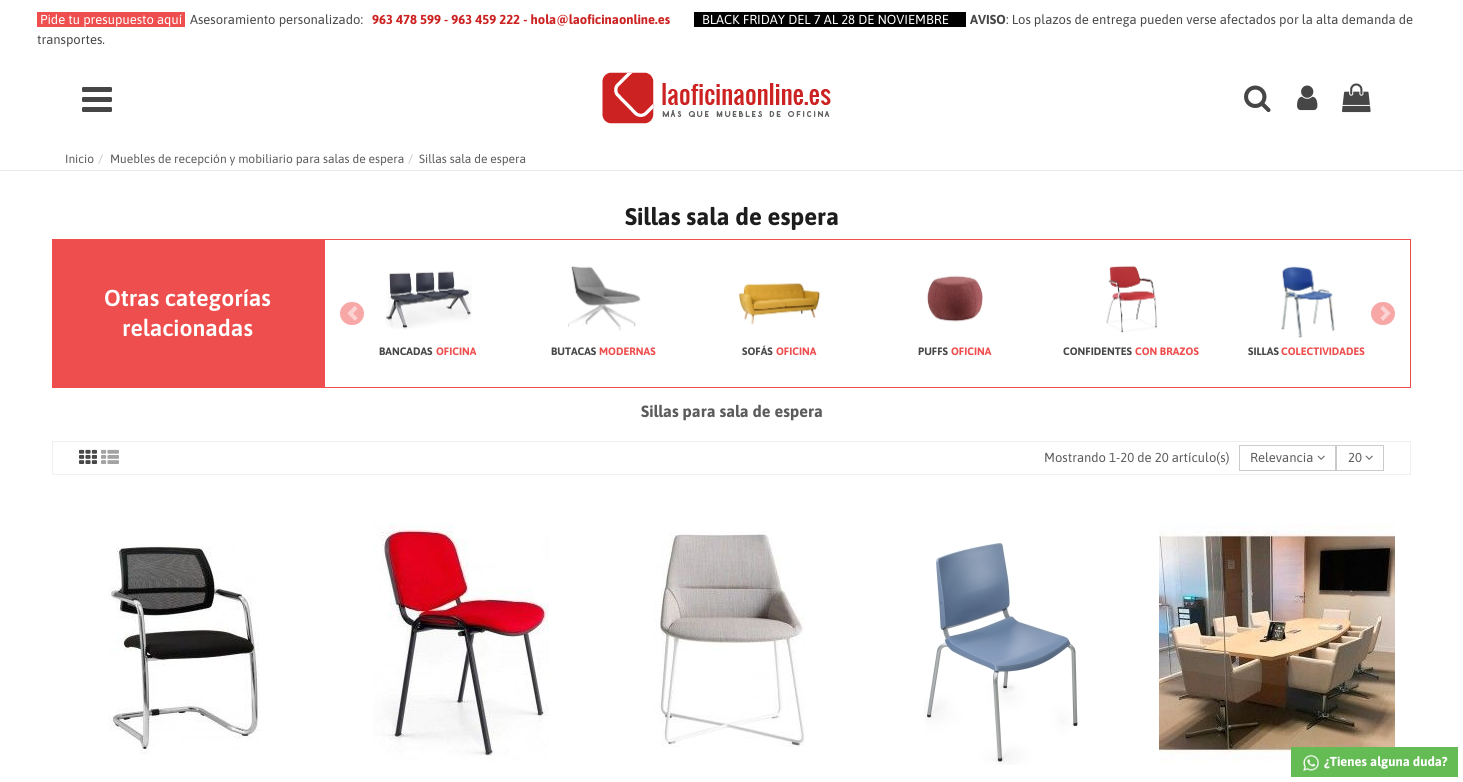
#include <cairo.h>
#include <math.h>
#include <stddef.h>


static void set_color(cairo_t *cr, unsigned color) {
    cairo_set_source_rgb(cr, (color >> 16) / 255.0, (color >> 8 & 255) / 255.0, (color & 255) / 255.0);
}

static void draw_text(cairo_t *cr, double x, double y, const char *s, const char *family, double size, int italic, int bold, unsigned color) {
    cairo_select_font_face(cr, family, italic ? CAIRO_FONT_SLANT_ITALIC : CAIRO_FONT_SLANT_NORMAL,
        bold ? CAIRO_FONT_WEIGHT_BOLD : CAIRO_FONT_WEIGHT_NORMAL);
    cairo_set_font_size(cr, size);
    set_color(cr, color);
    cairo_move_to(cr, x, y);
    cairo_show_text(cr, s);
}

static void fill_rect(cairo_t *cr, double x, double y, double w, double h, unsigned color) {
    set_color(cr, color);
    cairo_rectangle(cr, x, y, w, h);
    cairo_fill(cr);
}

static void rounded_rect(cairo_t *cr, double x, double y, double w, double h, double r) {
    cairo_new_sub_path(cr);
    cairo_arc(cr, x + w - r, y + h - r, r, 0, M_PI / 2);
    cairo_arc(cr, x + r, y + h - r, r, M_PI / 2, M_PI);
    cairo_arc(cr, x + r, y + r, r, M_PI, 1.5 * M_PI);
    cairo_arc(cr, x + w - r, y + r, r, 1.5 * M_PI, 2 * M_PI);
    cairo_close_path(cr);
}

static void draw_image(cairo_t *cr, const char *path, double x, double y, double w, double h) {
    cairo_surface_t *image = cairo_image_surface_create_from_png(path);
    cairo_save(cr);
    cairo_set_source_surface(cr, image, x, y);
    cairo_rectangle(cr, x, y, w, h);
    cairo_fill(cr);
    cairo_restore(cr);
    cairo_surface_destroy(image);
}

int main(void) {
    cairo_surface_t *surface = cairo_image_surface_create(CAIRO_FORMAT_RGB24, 1463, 782);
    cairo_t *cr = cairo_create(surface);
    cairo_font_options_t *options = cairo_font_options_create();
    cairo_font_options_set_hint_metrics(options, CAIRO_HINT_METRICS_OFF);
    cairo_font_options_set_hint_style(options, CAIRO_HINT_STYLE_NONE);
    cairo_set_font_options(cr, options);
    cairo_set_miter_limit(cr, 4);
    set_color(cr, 0xFFFFFF);
    cairo_paint(cr);
    fill_rect(cr, 37, 12, 148, 15, 0xEE4E4D);
    draw_text(cr, 40, 24, "Pide tu presupuesto aquí", "Asap", 13, 0, 0, 0xFFFFFF);
    draw_text(cr, 190, 24, "Asesoramiento personalizado:", "Asap", 13, 0, 0, 0x484848);
    draw_text(cr, 372, 24, "963 478 599 - 963 459 222 - hola@laoficinaonline.es", "Asap", 13, 0, 1, 0xCD2222);
    fill_rect(cr, 694, 12, 272, 15, 0x000000);
    draw_text(cr, 702, 24, "BLACK FRIDAY DEL 7 AL 28 DE NOVIEMBRE", "Asap", 13, 0, 0, 0xFFFFFF);
    draw_text(cr, 970, 24, "AVISO", "Asap", 13, 0, 1, 0x484848);
    draw_text(cr, 1006, 24, ": Los plazos de entrega pueden verse afectados por la alta demanda de", "Asap", 13, 0, 0, 0x484848);
    draw_text(cr, 37, 44, "transportes.", "Asap", 13, 0, 0, 0x484848);
    draw_image(cr, "assets/img1.png", 82, 87, 30, 25);
    draw_image(cr, "assets/img2.png", 602, 72, 229, 52);
    draw_image(cr, "assets/img3.png", 1244, 85, 27, 28);
    draw_image(cr, "assets/img4.png", 1297, 85, 21, 26);
    draw_image(cr, "assets/img5.png", 1342, 83, 29, 30);
    fill_rect(cr, 0, 170, 1463, 1, 0xE8E8E8);
    draw_text(cr, 65, 163, "Inicio", "Asap", 12, 0, 0, 0x5C5C5C);
    draw_text(cr, 98, 163, "/", "Asap", 12, 0, 0, 0xBEBEBE);
    draw_text(cr, 110, 163, "Muebles de recepción y mobiliario para salas de espera", "Asap", 12, 0, 0, 0x5C5C5C);
    draw_text(cr, 408, 163, "/", "Asap", 12, 0, 0, 0xBEBEBE);
    draw_text(cr, 419, 163, "Sillas sala de espera", "Asap", 12, 0, 0, 0x5C5C5C);
    draw_text(cr, 625, 225, "Sillas sala de espera", "Asap", 24, 0, 1, 0x1D1D1D);
    fill_rect(cr, 52, 239, 272, 149, 0xEE4E4D);
    draw_text(cr, 104, 306, "Otras categorías", "Asap SemiBold", 23, 0, 0, 0xFFFFFF);
    draw_text(cr, 122, 336, "relacionadas", "Asap SemiBold", 23, 0, 0, 0xFFFFFF);
    cairo_rectangle(cr, 324.5, 239.5, 1086, 148);
    set_color(cr, 0xEE4E4D);
    cairo_set_line_width(cr, 1);
    cairo_stroke(cr);
    set_color(cr, 0xF7A7A6);
    rounded_rect(cr, 340, 302, 24, 23, 11.5);
    cairo_fill(cr);
    draw_image(cr, "assets/img6.png", 347, 306, 11, 15);
    rounded_rect(cr, 1371, 302, 24, 23, 11.5);
    cairo_fill(cr);
    draw_image(cr, "assets/img7.png", 1380, 306, 11, 15);
    draw_image(cr, "assets/img8.png", 385, 271, 87, 59);
    draw_text(cr, 379, 355, "BANCADAS", "Asap", 10.75, 0, 1, 0x484848);
    draw_text(cr, 436, 355, "OFICINA", "Asap", 10.75, 0, 1, 0xEE4E4D);
    draw_image(cr, "assets/img9.png", 568, 266, 73, 65);
    draw_text(cr, 551, 355, "BUTACAS", "Asap", 10.75, 0, 1, 0x484848);
    draw_text(cr, 599, 355, "MODERNAS", "Asap", 10.75, 0, 1, 0xEE4E4D);
    draw_image(cr, "assets/img10.png", 736, 282, 85, 43);
    draw_text(cr, 742, 355, "SOFÁS", "Asap", 10.75, 0, 1, 0x484848);
    draw_text(cr, 776, 355, "OFICINA", "Asap", 10.75, 0, 1, 0xEE4E4D);
    draw_image(cr, "assets/img11.png", 927, 275, 56, 47);
    draw_text(cr, 918, 355, "PUFFS", "Asap", 10.75, 0, 1, 0x484848);
    draw_text(cr, 951, 355, "OFICINA", "Asap", 10.75, 0, 1, 0xEE4E4D);
    draw_image(cr, "assets/img12.png", 1106, 265, 52, 68);
    draw_text(cr, 1063, 355, "CONFIDENTES", "Asap", 10.75, 0, 1, 0x484848);
    draw_text(cr, 1135, 355, "CON BRAZOS", "Asap", 10.75, 0, 1, 0xEE4E4D);
    draw_image(cr, "assets/img13.png", 1281, 266, 54, 72);
    draw_text(cr, 1248, 355, "SILLAS", "Asap", 10.75, 0, 1, 0x484848);
    draw_text(cr, 1281, 355, "COLECTIVIDADES", "Asap", 10.75, 0, 1, 0xEE4E4D);
    draw_text(cr, 641, 417, "Sillas para sala de espera", "Asap", 16.25, 0, 1, 0x5C5C5C);
    cairo_rectangle(cr, 52.5, 441.5, 1358, 33);
    set_color(cr, 0xF0F0F0);
    cairo_stroke(cr);
    draw_image(cr, "assets/img14.png", 79, 449, 18, 15);
    draw_image(cr, "assets/img15.png", 101, 449, 18, 15);
    draw_text(cr, 1044, 462, "Mostrando 1-20 de 20 artículo(s)", "Asap", 13, 0, 0, 0x5C5C5C);
    cairo_rectangle(cr, 1239.5, 445.5, 96, 25);
    set_color(cr, 0xCBCBCB);
    cairo_stroke(cr);
    draw_text(cr, 1250, 462, "Relevancia", "Asap", 13, 0, 0, 0x5C5C5C);
    draw_image(cr, "assets/img16.png", 1317, 455, 8, 5);
    cairo_rectangle(cr, 1336.5, 445.5, 47, 25);
    set_color(cr, 0xCBCBCB);
    cairo_stroke(cr);
    draw_text(cr, 1348, 462, "20", "Asap", 13, 0, 0, 0x5C5C5C);
    draw_image(cr, "assets/img16.png", 1365, 455, 8, 5);
    draw_image(cr, "assets/img17.png", 108, 545, 152, 210);
    draw_image(cr, "assets/img18.png", 373, 523, 176, 239);
    draw_image(cr, "assets/img19.png", 653, 531, 152, 216);
    draw_image(cr, "assets/img20.png", 924, 542, 154, 223);
    draw_image(cr, "assets/img21.png", 1159, 523, 236, 240);
    fill_rect(cr, 1291, 747, 167, 30, 0x65BC54);
    draw_image(cr, "assets/img22.png", 1303, 754, 16, 18);
    draw_text(cr, 1324, 766, "¿Tienes alguna duda?", "Asap", 13, 0, 1, 0xFFFFFF);
    cairo_surface_write_to_png(surface, "output.png");
    cairo_font_options_destroy(options);
    cairo_destroy(cr);
    cairo_surface_destroy(surface);
    return 0;
}
